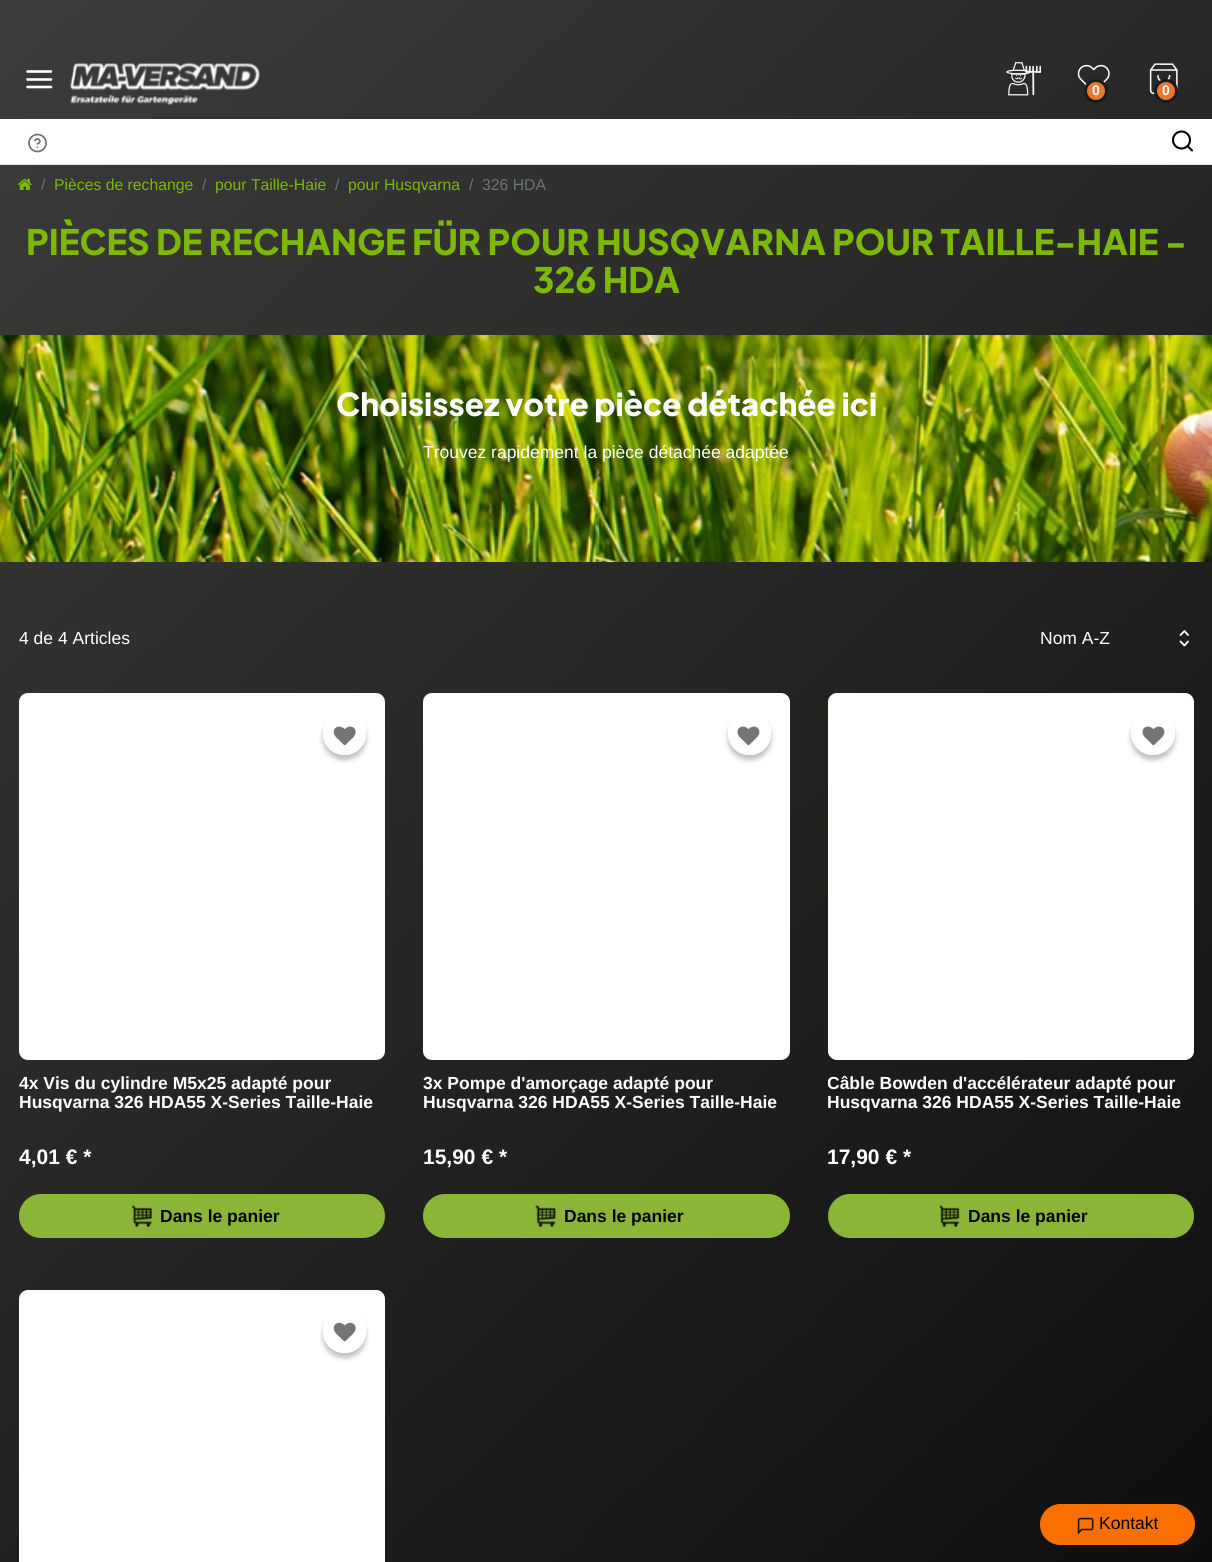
#include <cairo.h>
#include <math.h>
#include <stddef.h>


static void set_color(cairo_t *cr, unsigned color) {
    cairo_set_source_rgb(cr, (color >> 16) / 255.0, (color >> 8 & 255) / 255.0, (color & 255) / 255.0);
}

static void draw_text(cairo_t *cr, double x, double y, const char *s, const char *family, double size, int italic, int bold, unsigned color) {
    cairo_select_font_face(cr, family, italic ? CAIRO_FONT_SLANT_ITALIC : CAIRO_FONT_SLANT_NORMAL,
        bold ? CAIRO_FONT_WEIGHT_BOLD : CAIRO_FONT_WEIGHT_NORMAL);
    cairo_set_font_size(cr, size);
    set_color(cr, color);
    cairo_move_to(cr, x, y);
    cairo_show_text(cr, s);
}

static void fill_rect(cairo_t *cr, double x, double y, double w, double h, unsigned color) {
    set_color(cr, color);
    cairo_rectangle(cr, x, y, w, h);
    cairo_fill(cr);
}

static void rounded_rect(cairo_t *cr, double x, double y, double w, double h, double r) {
    cairo_new_sub_path(cr);
    cairo_arc(cr, x + w - r, y + h - r, r, 0, M_PI / 2);
    cairo_arc(cr, x + r, y + h - r, r, M_PI / 2, M_PI);
    cairo_arc(cr, x + r, y + r, r, M_PI, 1.5 * M_PI);
    cairo_arc(cr, x + w - r, y + r, r, 1.5 * M_PI, 2 * M_PI);
    cairo_close_path(cr);
}

static void draw_shadow(cairo_t *cr, double x, double y, double w, double h, double r, double blur, double alpha) {
    cairo_push_group_with_content(cr, CAIRO_CONTENT_ALPHA);
    cairo_set_operator(cr, CAIRO_OPERATOR_SOURCE);
    for (int i = 15; i >= -15 && fmin(w, h) + blur * i / 3 > 0; i -= 2) {
        double e = blur * i / 6;
        cairo_set_source_rgba(cr, 0, 0, 0, alpha * erfc((i - 1) / 8.5) / 2);
        rounded_rect(cr, x - e, y - e, w + 2 * e, h + 2 * e, fmax(0, fmin(r + e + blur * .6, fmin(w, h) / 2 + e)));
        cairo_fill(cr);
    }
    cairo_pattern_t *soft = cairo_pop_group(cr);
    cairo_mask(cr, soft);
    cairo_pattern_destroy(soft);
}

static void draw_image(cairo_t *cr, const char *path, double x, double y, double w, double h) {
    cairo_surface_t *image = cairo_image_surface_create_from_png(path);
    cairo_save(cr);
    cairo_set_source_surface(cr, image, x, y);
    cairo_rectangle(cr, x, y, w, h);
    cairo_fill(cr);
    cairo_restore(cr);
    cairo_surface_destroy(image);
}

int main(void) {
    cairo_surface_t *surface = cairo_image_surface_create(CAIRO_FORMAT_RGB24, 1212, 1562);
    cairo_t *cr = cairo_create(surface);
    cairo_font_options_t *options = cairo_font_options_create();
    cairo_font_options_set_hint_metrics(options, CAIRO_HINT_METRICS_OFF);
    cairo_font_options_set_hint_style(options, CAIRO_HINT_STYLE_NONE);
    cairo_set_font_options(cr, options);
    cairo_set_miter_limit(cr, 4);
    cairo_pattern_t *gradient;
    set_color(cr, 0xFFFFFF);
    cairo_paint(cr);
    gradient = cairo_pattern_create_linear(-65, 61, 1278, 1502);
    cairo_pattern_add_color_stop_rgba(gradient, 0, 0.235, 0.235, 0.231, 1);
    cairo_pattern_add_color_stop_rgba(gradient, 1, 0.055, 0.055, 0.055, 1);
    cairo_set_source(cr, gradient);
    cairo_pattern_destroy(gradient);
    cairo_rectangle(cr, 0, 0, 1212, 1562);
    cairo_fill(cr);
    fill_rect(cr, 0, 164, 1212, 1, 0xDEE2E6);
    cairo_new_path(cr);
    cairo_move_to(cr, 27.5, 79.5);
    cairo_line_to(cr, 51, 79.5);
    cairo_move_to(cr, 27.5, 71.5);
    cairo_line_to(cr, 51, 71.5);
    cairo_move_to(cr, 27.5, 87);
    cairo_line_to(cr, 51, 87);
    set_color(cr, 0xFFFFFF);
    cairo_set_line_width(cr, 2.6);
    cairo_set_line_cap(cr, CAIRO_LINE_CAP_ROUND);
    cairo_set_line_join(cr, CAIRO_LINE_JOIN_ROUND);
    cairo_stroke(cr);
    fill_rect(cr, 0, 119, 1212, 45, 0xFFFFFF);
    draw_image(cr, "assets/img1.png", 28, 133, 19, 20);
    cairo_arc(cr, 1181.5, 140, 8.5, 0, 2 * M_PI);
    set_color(cr, 0x000000);
    cairo_set_line_width(cr, 2.1);
    cairo_set_line_cap(cr, CAIRO_LINE_CAP_BUTT);
    cairo_set_line_join(cr, CAIRO_LINE_JOIN_MITER);
    cairo_stroke(cr);
    cairo_new_path(cr);
    cairo_move_to(cr, 1192, 150.5);
    cairo_line_to(cr, 1187.5, 146);
    cairo_set_line_cap(cr, CAIRO_LINE_CAP_ROUND);
    cairo_set_line_join(cr, CAIRO_LINE_JOIN_ROUND);
    cairo_stroke(cr);
    draw_image(cr, "assets/img2.png", 70, 62, 190, 44);
    draw_image(cr, "assets/img3.png", 1006, 62, 35, 34);
    draw_image(cr, "assets/img4.png", 1077, 64, 33, 22);
    set_color(cr, 0xE8782F);
    cairo_arc(cr, 1096, 91, 10.5, 0, 2 * M_PI);
    cairo_fill_preserve(cr);
    set_color(cr, 0x191B1D);
    cairo_set_line_width(cr, 3);
    cairo_set_line_cap(cr, CAIRO_LINE_CAP_BUTT);
    cairo_set_line_join(cr, CAIRO_LINE_JOIN_MITER);
    cairo_stroke(cr);
    draw_text(cr, 1092, 95, "0", "Liberation Sans", 14, 0, 1, 0xFFFFFF);
    draw_image(cr, "assets/img5.png", 1149, 63, 29, 32);
    set_color(cr, 0xE8782F);
    cairo_arc(cr, 1166, 91, 10.5, 0, 2 * M_PI);
    cairo_fill_preserve(cr);
    set_color(cr, 0x191B1D);
    cairo_stroke(cr);
    draw_text(cr, 1162, 95, "0", "Liberation Sans", 14, 0, 1, 0xFFFFFF);
    draw_image(cr, "assets/img6.png", 17, 178, 15, 12);
    draw_text(cr, 41, 190, "/", "Liberation Sans", 15.75, 0, 0, 0x6C757D);
    draw_text(cr, 54, 190, "Pièces de rechange", "Liberation Sans", 15.75, 0, 0, 0x7DB806);
    draw_text(cr, 202, 190, "/", "Liberation Sans", 15.75, 0, 0, 0x6C757D);
    draw_text(cr, 215, 190, "pour Taille-Haie", "Liberation Sans", 15.75, 0, 0, 0x7DB806);
    draw_text(cr, 335, 190, "/", "Liberation Sans", 15.75, 0, 0, 0x6C757D);
    draw_text(cr, 348, 190, "pour Husqvarna", "Liberation Sans", 15.75, 0, 0, 0x7DB806);
    draw_text(cr, 469, 190, "/", "Liberation Sans", 15.75, 0, 0, 0x6C757D);
    draw_text(cr, 482, 190, "326 HDA", "Liberation Sans", 15.75, 0, 0, 0x6C757D);
    draw_text(cr, 26, 255, "PIÈCES DE RECHANGE FÜR POUR HUSQVARNA POUR TAILLE-HAIE -", "Plus Jakarta Sans ExtraBold", 35, 0, 0, 0x7DB806);
    draw_text(cr, 533, 293, "326 HDA", "Plus Jakarta Sans ExtraBold", 35, 0, 0, 0x7DB806);
    draw_image(cr, "assets/img7.png", 0, 335, 1212, 227);
    draw_text(cr, 336, 416, "Choisissez votre pièce détachée ici", "Plus Jakarta Sans ExtraBold", 31.5, 0, 0, 0xFFFFFF);
    draw_text(cr, 423, 458, "Trouvez rapidement la pièce détachée adaptée", "Liberation Sans", 17.5, 0, 0, 0xFFFFFF);
    draw_text(cr, 19, 644, "4 de 4 Articles", "Liberation Sans", 17.5, 0, 0, 0xFFFFFF);
    cairo_new_path(cr);
    cairo_move_to(cr, 1188, 641.5);
    cairo_line_to(cr, 1184.5, 645.5);
    cairo_line_to(cr, 1180.5, 641.5);
    cairo_move_to(cr, 1188, 635);
    cairo_line_to(cr, 1184.5, 631);
    cairo_line_to(cr, 1180.5, 635);
    cairo_set_line_width(cr, 1.8);
    cairo_set_line_cap(cr, CAIRO_LINE_CAP_ROUND);
    cairo_set_line_join(cr, CAIRO_LINE_JOIN_ROUND);
    cairo_stroke(cr);
    draw_text(cr, 1040, 644, "Nom A-Z", "Liberation Sans", 17.5, 0, 0, 0xFFFFFF);
    rounded_rect(cr, 19, 693, 366, 367, 9);
    cairo_fill(cr);
    cairo_save(cr);
    cairo_set_fill_rule(cr, CAIRO_FILL_RULE_EVEN_ODD);
    cairo_new_path(cr);
    cairo_move_to(cr, 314, 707);
    cairo_line_to(cr, 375, 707);
    cairo_line_to(cr, 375, 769);
    cairo_line_to(cr, 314, 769);
    cairo_close_path(cr);
    cairo_move_to(cr, 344.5, 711);
    cairo_curve_to(cr, 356.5, 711, 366, 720.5, 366, 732.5);
    cairo_line_to(cr, 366, 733.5);
    cairo_curve_to(cr, 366, 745.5, 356.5, 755, 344.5, 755);
    cairo_curve_to(cr, 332.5, 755, 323, 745.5, 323, 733.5);
    cairo_line_to(cr, 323, 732.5);
    cairo_curve_to(cr, 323, 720.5, 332.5, 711, 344.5, 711);
    cairo_close_path(cr);
    cairo_clip(cr);
    set_color(cr, 0x000000);
    draw_shadow(cr, 323, 716, 43, 44, 21.5, 2.5, 0.25);
    cairo_restore(cr);
    cairo_set_source_rgba(cr, 1, 1, 1, 0.95);
    rounded_rect(cr, 323, 711, 43, 44, 21.5);
    cairo_fill(cr);
    draw_image(cr, "assets/img8.png", 333, 726, 23, 20);
    draw_text(cr, 19, 1089, "4x Vis du cylindre M5x25 adapté pour", "Liberation Sans", 17.5, 0, 1, 0xFFFFFF);
    draw_text(cr, 19, 1108, "Husqvarna 326 HDA55 X-Series Taille-Haie", "Liberation Sans", 17.5, 0, 1, 0xFFFFFF);
    draw_text(cr, 19, 1164, "4,01 € *", "Liberation Sans", 21, 0, 1, 0xFFFFFF);
    set_color(cr, 0x8AB536);
    rounded_rect(cr, 19, 1194, 366, 44, 22);
    cairo_fill(cr);
    draw_image(cr, "assets/img9.png", 131, 1205, 21, 23);
    draw_text(cr, 160, 1222, "Dans le panier", "Liberation Sans", 17.5, 0, 1, 0x000000);
    set_color(cr, 0xFFFFFF);
    rounded_rect(cr, 423, 693, 367, 367, 9);
    cairo_fill(cr);
    cairo_save(cr);
    cairo_set_fill_rule(cr, CAIRO_FILL_RULE_EVEN_ODD);
    cairo_new_path(cr);
    cairo_move_to(cr, 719, 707);
    cairo_line_to(cr, 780, 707);
    cairo_line_to(cr, 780, 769);
    cairo_line_to(cr, 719, 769);
    cairo_close_path(cr);
    cairo_move_to(cr, 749.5, 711);
    cairo_curve_to(cr, 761.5, 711, 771, 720.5, 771, 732.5);
    cairo_line_to(cr, 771, 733.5);
    cairo_curve_to(cr, 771, 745.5, 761.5, 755, 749.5, 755);
    cairo_curve_to(cr, 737.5, 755, 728, 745.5, 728, 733.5);
    cairo_line_to(cr, 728, 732.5);
    cairo_curve_to(cr, 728, 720.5, 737.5, 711, 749.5, 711);
    cairo_close_path(cr);
    cairo_clip(cr);
    set_color(cr, 0x000000);
    draw_shadow(cr, 728, 716, 43, 44, 21.5, 2.5, 0.25);
    cairo_restore(cr);
    cairo_set_source_rgba(cr, 1, 1, 1, 0.95);
    rounded_rect(cr, 728, 711, 43, 44, 21.5);
    cairo_fill(cr);
    draw_image(cr, "assets/img10.png", 737, 726, 23, 20);
    draw_text(cr, 423, 1089, "3x Pompe d'amorçage adapté pour", "Liberation Sans", 17.5, 0, 1, 0xFFFFFF);
    draw_text(cr, 423, 1108, "Husqvarna 326 HDA55 X-Series Taille-Haie", "Liberation Sans", 17.5, 0, 1, 0xFFFFFF);
    draw_text(cr, 423, 1164, "15,90 € *", "Liberation Sans", 21, 0, 1, 0xFFFFFF);
    set_color(cr, 0x8AB536);
    rounded_rect(cr, 423, 1194, 367, 44, 22);
    cairo_fill(cr);
    draw_image(cr, "assets/img11.png", 535, 1205, 21, 23);
    draw_text(cr, 564, 1222, "Dans le panier", "Liberation Sans", 17.5, 0, 1, 0x000000);
    set_color(cr, 0xFFFFFF);
    rounded_rect(cr, 828, 693, 366, 367, 9);
    cairo_fill(cr);
    cairo_save(cr);
    cairo_set_fill_rule(cr, CAIRO_FILL_RULE_EVEN_ODD);
    cairo_new_path(cr);
    cairo_move_to(cr, 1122, 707);
    cairo_line_to(cr, 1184, 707);
    cairo_line_to(cr, 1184, 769);
    cairo_line_to(cr, 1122, 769);
    cairo_close_path(cr);
    cairo_move_to(cr, 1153, 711);
    cairo_curve_to(cr, 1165, 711, 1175, 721, 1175, 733);
    cairo_curve_to(cr, 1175, 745, 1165, 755, 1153, 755);
    cairo_curve_to(cr, 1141, 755, 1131, 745, 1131, 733);
    cairo_curve_to(cr, 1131, 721, 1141, 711, 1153, 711);
    cairo_close_path(cr);
    cairo_clip(cr);
    set_color(cr, 0x000000);
    draw_shadow(cr, 1131, 716, 44, 44, 22, 2.5, 0.25);
    cairo_restore(cr);
    cairo_set_source_rgba(cr, 1, 1, 1, 0.95);
    cairo_arc(cr, 1153, 733, 22, 0, 2 * M_PI);
    cairo_fill(cr);
    draw_image(cr, "assets/img10.png", 1142, 726, 23, 20);
    cairo_save(cr);
    cairo_rectangle(cr, 828, 1074, 366, 56);
    cairo_clip(cr);
    draw_text(cr, 827, 1089, "Câble Bowden d'accélérateur adapté pour", "Liberation Sans", 17.5, 0, 1, 0xFFFFFF);
    cairo_restore(cr);
    draw_text(cr, 827, 1108, "Husqvarna 326 HDA55 X-Series Taille-Haie", "Liberation Sans", 17.5, 0, 1, 0xFFFFFF);
    draw_text(cr, 827, 1164, "17,90 € *", "Liberation Sans", 21, 0, 1, 0xFFFFFF);
    set_color(cr, 0x8AB536);
    rounded_rect(cr, 828, 1194, 366, 44, 22);
    cairo_fill(cr);
    draw_image(cr, "assets/img12.png", 939, 1205, 21, 23);
    draw_text(cr, 968, 1222, "Dans le panier", "Liberation Sans", 17.5, 0, 1, 0x000000);
    set_color(cr, 0xFFFFFF);
    rounded_rect(cr, 19, 1290, 366, 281, 9);
    cairo_fill(cr);
    cairo_save(cr);
    cairo_set_fill_rule(cr, CAIRO_FILL_RULE_EVEN_ODD);
    cairo_new_path(cr);
    cairo_move_to(cr, 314, 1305);
    cairo_line_to(cr, 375, 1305);
    cairo_line_to(cr, 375, 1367);
    cairo_line_to(cr, 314, 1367);
    cairo_close_path(cr);
    cairo_move_to(cr, 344.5, 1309);
    cairo_curve_to(cr, 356.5, 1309, 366, 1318.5, 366, 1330.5);
    cairo_line_to(cr, 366, 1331.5);
    cairo_curve_to(cr, 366, 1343.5, 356.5, 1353, 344.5, 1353);
    cairo_curve_to(cr, 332.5, 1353, 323, 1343.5, 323, 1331.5);
    cairo_line_to(cr, 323, 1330.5);
    cairo_curve_to(cr, 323, 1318.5, 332.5, 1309, 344.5, 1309);
    cairo_close_path(cr);
    cairo_clip(cr);
    set_color(cr, 0x000000);
    draw_shadow(cr, 323, 1314, 43, 44, 21.5, 2.5, 0.25);
    cairo_restore(cr);
    cairo_set_source_rgba(cr, 1, 1, 1, 0.95);
    rounded_rect(cr, 323, 1309, 43, 44, 21.5);
    cairo_fill(cr);
    rounded_rect(cr, 323.5, 1309.5, 42, 43, 21);
    cairo_set_source_rgba(cr, 1, 1, 1, 0.18);
    cairo_set_line_width(cr, 1);
    cairo_set_line_cap(cr, CAIRO_LINE_CAP_BUTT);
    cairo_set_line_join(cr, CAIRO_LINE_JOIN_MITER);
    cairo_stroke(cr);
    draw_image(cr, "assets/img13.png", 333, 1322, 23, 20);
    set_color(cr, 0xF97001);
    rounded_rect(cr, 1040.5, 1504.5, 154, 40, 20);
    cairo_fill_preserve(cr);
    cairo_stroke(cr);
    draw_image(cr, "assets/img14.png", 1077, 1517, 17, 18);
    draw_text(cr, 1099, 1529, "Kontakt", "Liberation Sans", 17.5, 0, 0, 0x000000);
    cairo_surface_write_to_png(surface, "output.png");
    cairo_font_options_destroy(options);
    cairo_destroy(cr);
    cairo_surface_destroy(surface);
    return 0;
}
